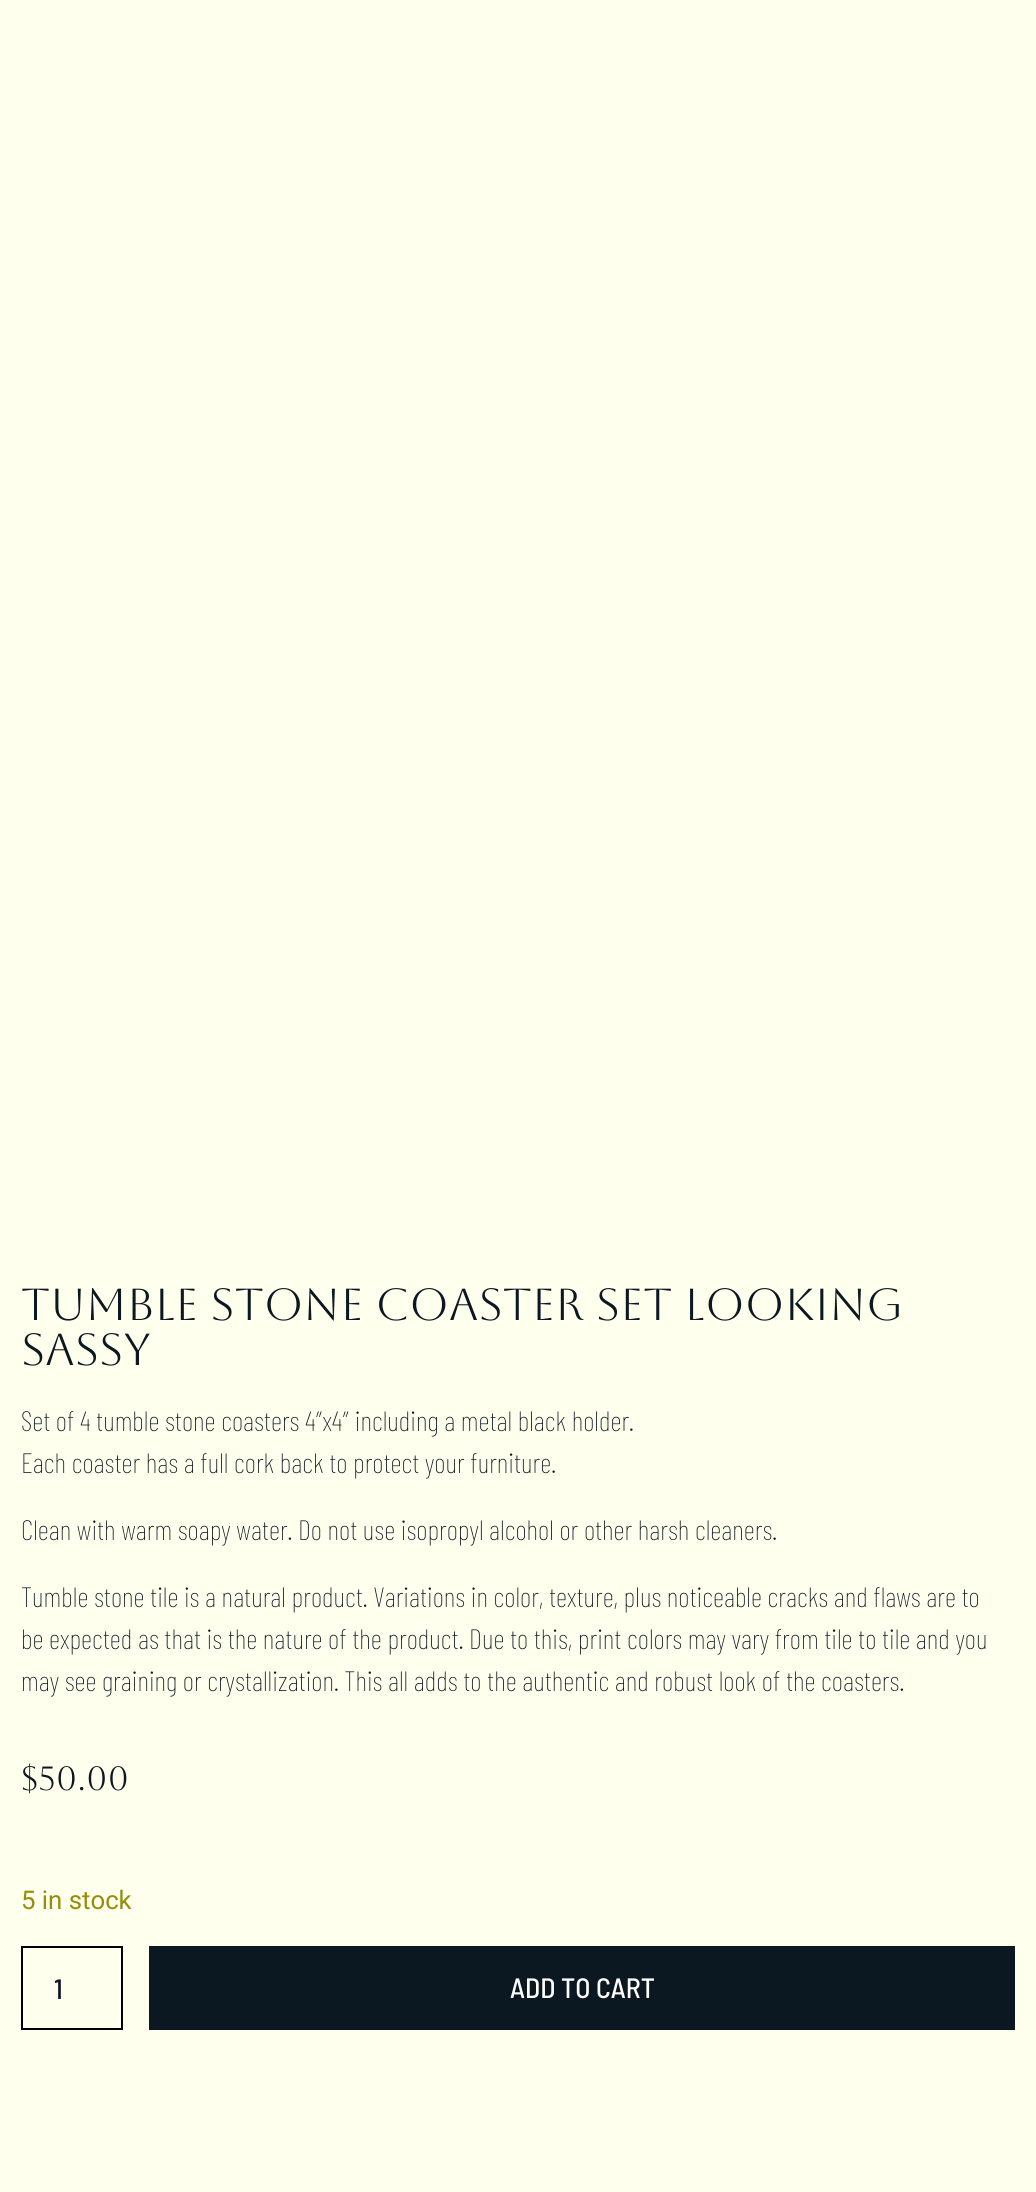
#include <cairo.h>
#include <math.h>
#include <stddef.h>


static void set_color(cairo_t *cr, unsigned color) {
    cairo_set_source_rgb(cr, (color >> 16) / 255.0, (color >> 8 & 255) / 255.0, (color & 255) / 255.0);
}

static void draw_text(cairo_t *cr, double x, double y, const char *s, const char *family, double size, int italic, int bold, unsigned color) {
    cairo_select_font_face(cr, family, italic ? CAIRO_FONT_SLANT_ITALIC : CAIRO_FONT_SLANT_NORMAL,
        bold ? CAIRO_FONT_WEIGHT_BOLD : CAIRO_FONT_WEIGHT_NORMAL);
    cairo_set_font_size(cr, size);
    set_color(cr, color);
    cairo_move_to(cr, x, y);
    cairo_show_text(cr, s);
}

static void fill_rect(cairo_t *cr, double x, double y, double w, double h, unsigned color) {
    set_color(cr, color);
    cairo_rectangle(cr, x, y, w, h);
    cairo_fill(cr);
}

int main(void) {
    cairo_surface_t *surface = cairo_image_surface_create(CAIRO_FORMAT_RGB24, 1036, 2192);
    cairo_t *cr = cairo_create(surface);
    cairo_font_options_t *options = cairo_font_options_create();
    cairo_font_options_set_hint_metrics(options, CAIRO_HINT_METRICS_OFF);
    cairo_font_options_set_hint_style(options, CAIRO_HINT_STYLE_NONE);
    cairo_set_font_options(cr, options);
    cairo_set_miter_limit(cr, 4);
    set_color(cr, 0xFFFFEE);
    cairo_paint(cr);
    draw_text(cr, 21, 1320, "Tumble stone coaster set looking", "Aboreto", 44.75, 0, 0, 0x0C1821);
    draw_text(cr, 21, 1365, "Sassy", "Aboreto", 44.75, 0, 0, 0x0C1821);
    draw_text(cr, 21, 1431, "Set of 4 tumble stone coasters 4″x4″ including a metal black holder.", "Barlow Condensed ExtraLight", 28, 0, 0, 0x0C1821);
    draw_text(cr, 21, 1473, "Each coaster has a full cork back to protect your furniture.", "Barlow Condensed ExtraLight", 28, 0, 0, 0x0C1821);
    draw_text(cr, 21, 1540, "Clean with warm soapy water. Do not use isopropyl alcohol or other harsh cleaners.", "Barlow Condensed ExtraLight", 28, 0, 0, 0x0C1821);
    draw_text(cr, 21, 1607, "Tumble stone tile is a natural product. Variations in color, texture, plus noticeable cracks and flaws are to", "Barlow Condensed ExtraLight", 28, 0, 0, 0x0C1821);
    draw_text(cr, 21, 1649, "be expected as that is the nature of the product. Due to this, print colors may vary from tile to tile and you", "Barlow Condensed ExtraLight", 28, 0, 0, 0x0C1821);
    draw_text(cr, 21, 1691, "may see graining or crystallization. This all adds to the authentic and robust look of the coasters.", "Barlow Condensed ExtraLight", 28, 0, 0, 0x0C1821);
    draw_text(cr, 21, 1790, "$50.00", "Aboreto", 33.5, 0, 0, 0x0C1821);
    draw_text(cr, 21, 1909, "5 in stock", "Roboto", 25.75, 0, 0, 0x958E09);
    cairo_rectangle(cr, 22, 1947, 100, 82);
    set_color(cr, 0x000000);
    cairo_stroke(cr);
    draw_text(cr, 54, 1999, "1", "Barlow Semi Condensed Medium", 28, 0, 0, 0x0C1821);
    fill_rect(cr, 149, 1946, 866, 84, 0x0C1821);
    draw_text(cr, 510, 1998, "ADD TO CART", "Barlow Semi Condensed Medium", 28, 0, 0, 0xFFFFFF);
    cairo_surface_write_to_png(surface, "output.png");
    cairo_font_options_destroy(options);
    cairo_destroy(cr);
    cairo_surface_destroy(surface);
    return 0;
}
